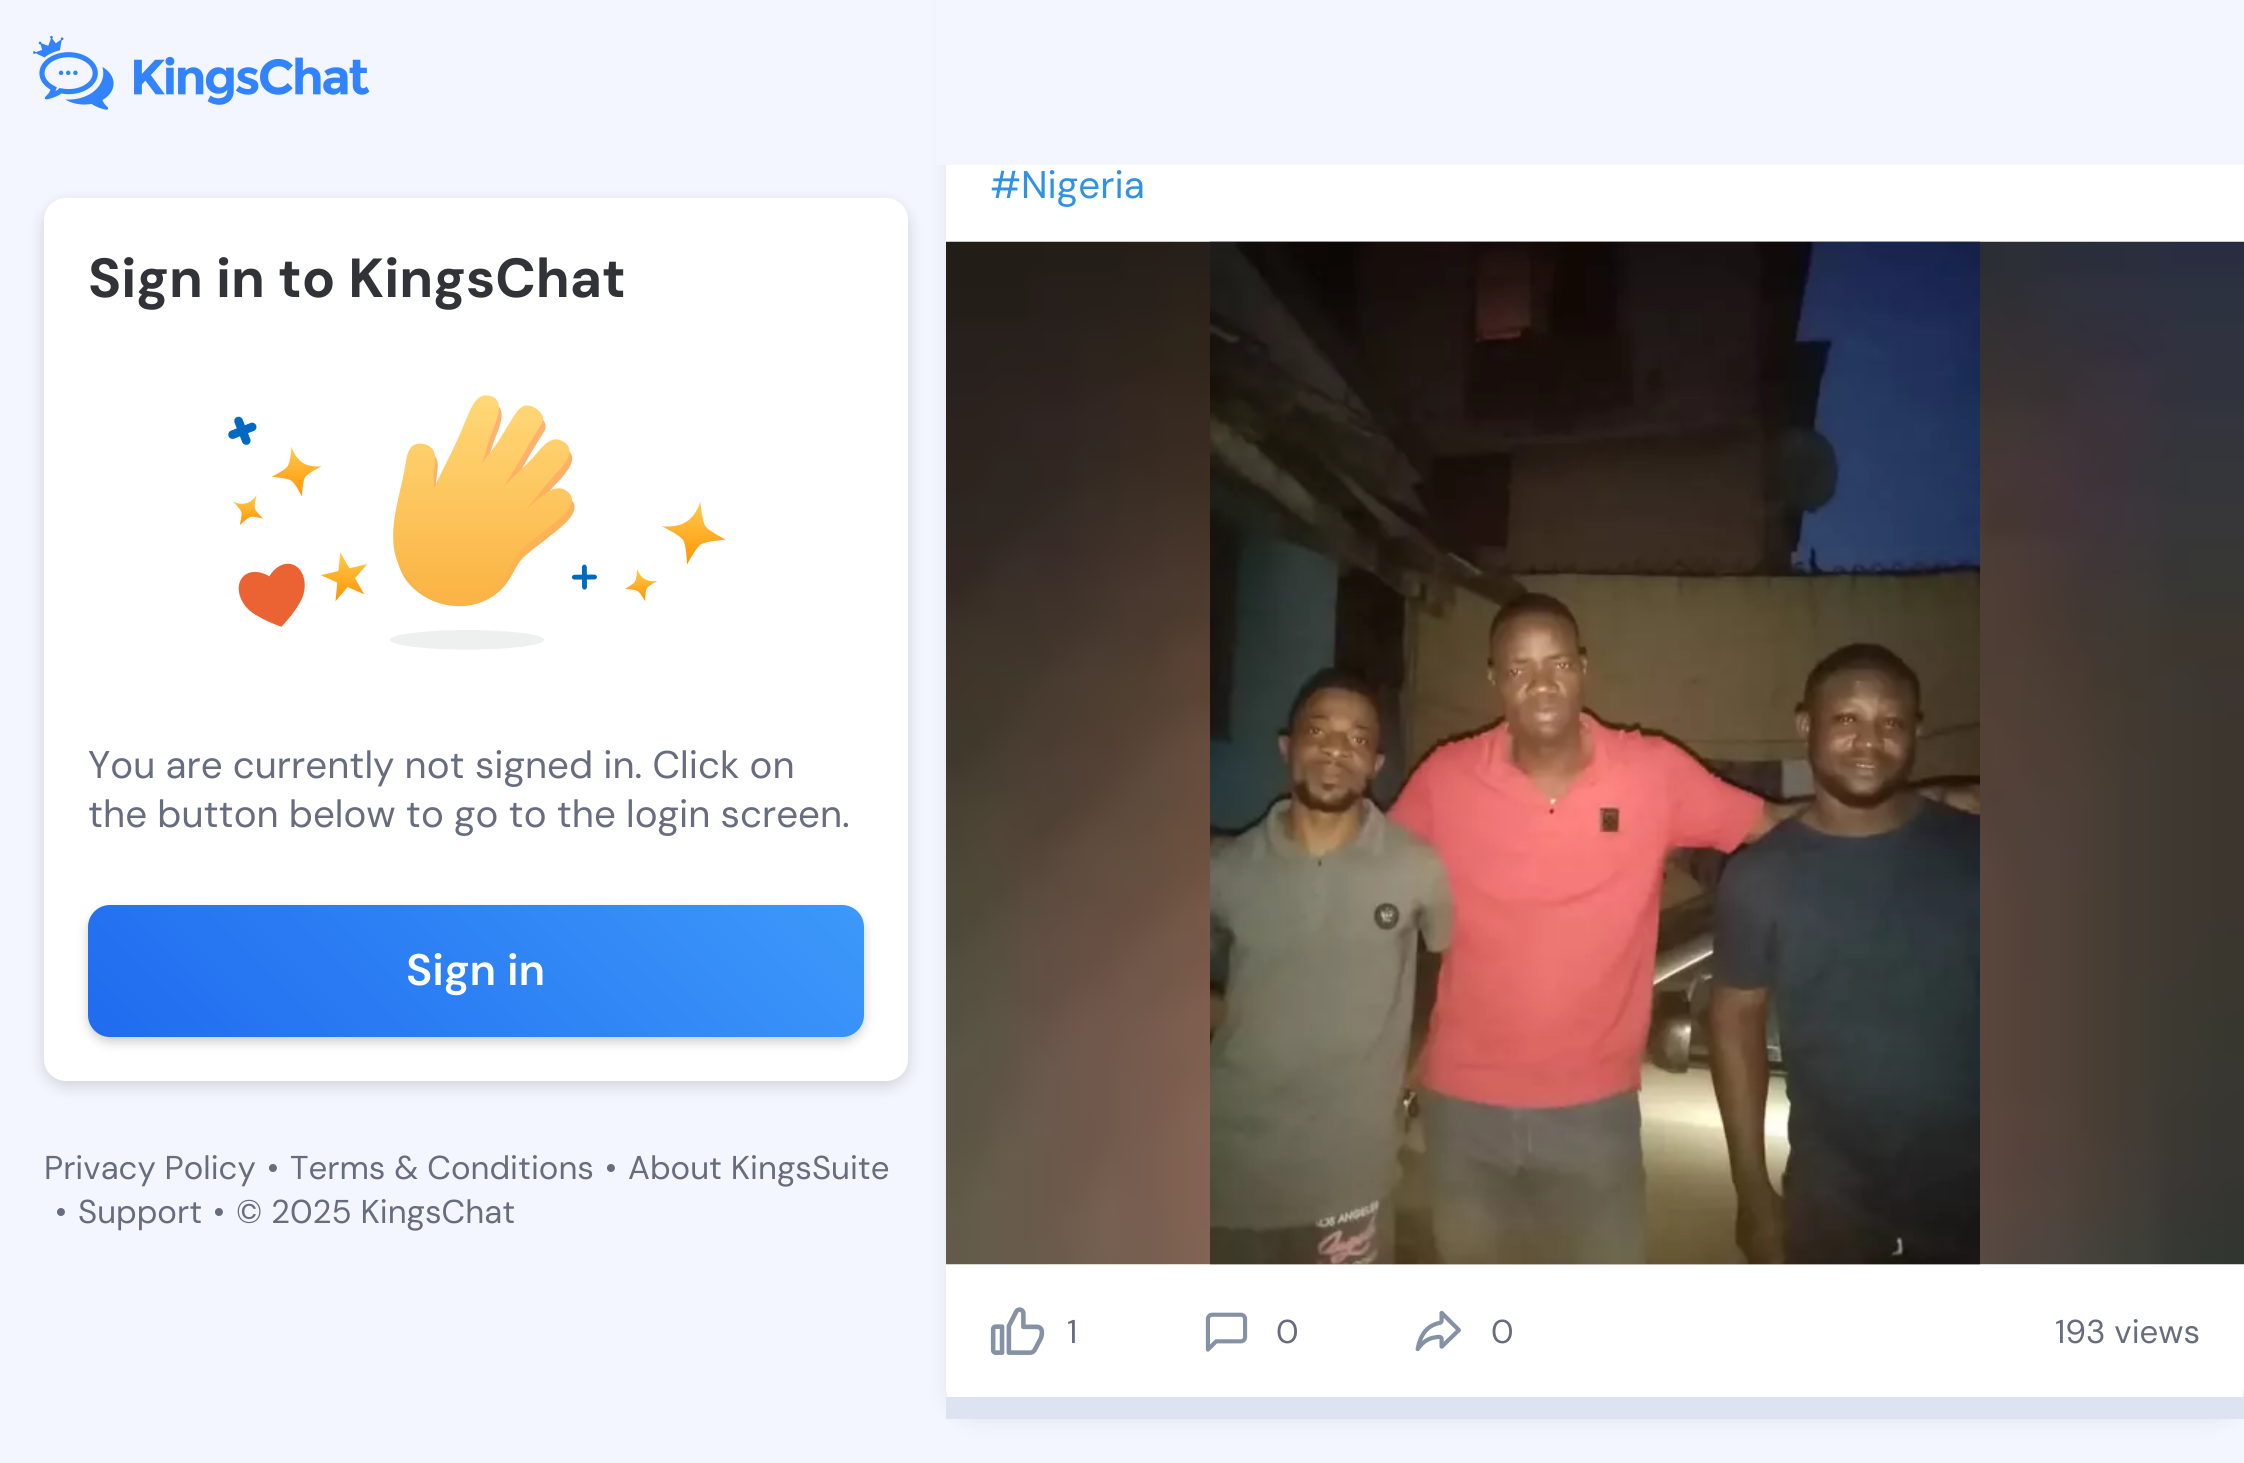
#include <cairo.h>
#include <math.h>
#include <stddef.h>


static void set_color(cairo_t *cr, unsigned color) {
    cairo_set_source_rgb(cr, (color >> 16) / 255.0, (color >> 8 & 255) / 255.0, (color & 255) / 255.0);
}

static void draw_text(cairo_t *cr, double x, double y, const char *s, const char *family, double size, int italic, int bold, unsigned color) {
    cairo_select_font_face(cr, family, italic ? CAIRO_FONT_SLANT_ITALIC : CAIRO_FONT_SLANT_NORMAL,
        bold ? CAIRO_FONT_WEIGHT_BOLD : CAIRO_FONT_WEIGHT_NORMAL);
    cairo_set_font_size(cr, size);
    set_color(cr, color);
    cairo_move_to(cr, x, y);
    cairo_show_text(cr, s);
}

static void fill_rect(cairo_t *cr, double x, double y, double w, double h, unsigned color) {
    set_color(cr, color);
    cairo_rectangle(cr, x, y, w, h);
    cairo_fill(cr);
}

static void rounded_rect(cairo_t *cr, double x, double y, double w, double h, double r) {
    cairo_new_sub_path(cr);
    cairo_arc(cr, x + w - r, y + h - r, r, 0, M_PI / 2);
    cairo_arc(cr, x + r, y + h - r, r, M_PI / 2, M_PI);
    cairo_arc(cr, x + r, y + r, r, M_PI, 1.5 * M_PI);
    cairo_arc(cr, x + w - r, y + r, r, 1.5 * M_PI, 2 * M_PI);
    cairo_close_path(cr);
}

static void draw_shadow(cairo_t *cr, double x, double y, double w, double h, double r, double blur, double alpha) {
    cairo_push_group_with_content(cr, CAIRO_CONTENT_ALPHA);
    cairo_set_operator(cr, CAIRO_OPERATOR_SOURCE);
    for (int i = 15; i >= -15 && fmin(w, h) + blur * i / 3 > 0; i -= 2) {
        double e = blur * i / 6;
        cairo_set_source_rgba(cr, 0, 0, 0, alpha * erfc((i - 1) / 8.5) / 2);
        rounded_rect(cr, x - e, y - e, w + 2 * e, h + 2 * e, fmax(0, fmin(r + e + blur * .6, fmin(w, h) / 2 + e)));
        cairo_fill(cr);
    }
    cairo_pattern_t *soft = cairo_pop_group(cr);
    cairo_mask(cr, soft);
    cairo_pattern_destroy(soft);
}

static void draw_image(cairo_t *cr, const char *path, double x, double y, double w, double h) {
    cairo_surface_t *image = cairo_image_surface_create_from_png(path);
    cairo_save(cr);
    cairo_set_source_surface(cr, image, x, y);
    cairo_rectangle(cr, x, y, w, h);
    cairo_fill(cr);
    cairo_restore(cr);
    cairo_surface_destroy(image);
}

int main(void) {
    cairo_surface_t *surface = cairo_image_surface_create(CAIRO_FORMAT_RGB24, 2244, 1463);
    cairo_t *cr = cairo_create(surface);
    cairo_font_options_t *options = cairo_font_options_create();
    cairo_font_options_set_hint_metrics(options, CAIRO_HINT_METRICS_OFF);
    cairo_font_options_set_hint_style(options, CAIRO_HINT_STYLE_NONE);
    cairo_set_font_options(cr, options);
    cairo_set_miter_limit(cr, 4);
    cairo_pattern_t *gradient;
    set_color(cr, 0xF3F6FE);
    cairo_paint(cr);
    set_color(cr, 0x393D46);
    draw_shadow(cr, 946, -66, 1298, 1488, 33, 11, 0.08);
    set_color(cr, 0xFFFFFF);
    rounded_rect(cr, 946, -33, 1298, 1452, 33);
    cairo_fill(cr);
    fill_rect(cr, 936, 0, 1308, 165, 0xF3F6FE);
    draw_image(cr, "assets/img1.png", 33, 35, 337, 75);
    set_color(cr, 0x000000);
    draw_shadow(cr, 44, 204, 864, 882, 22, 8, 0.15);
    set_color(cr, 0xFFFFFF);
    rounded_rect(cr, 44, 198, 864, 883, 22);
    cairo_fill(cr);
    draw_text(cr, 88, 297, "Sign in to KingsChat", "DM Sans", 55, 0, 1, 0x323338);
    draw_image(cr, "assets/img2.png", 228, 395, 498, 255);
    draw_text(cr, 88, 778, "You are currently not signed in. Click on", "DM Sans", 38.5, 0, 0, 0x676D7E);
    draw_text(cr, 88, 827, "the button below to go to the login screen.", "DM Sans", 38.5, 0, 0, 0x676D7E);
    set_color(cr, 0x000000);
    draw_shadow(cr, 88, 910, 776, 132, 22, 5.5, 0.2);
    gradient = cairo_pattern_create_linear(346, 1295, 993, 647);
    cairo_pattern_add_color_stop_rgba(gradient, 0, 0.125, 0.42, 0.937, 1);
    cairo_pattern_add_color_stop_rgba(gradient, 1, 0.286, 0.675, 1, 1);
    cairo_set_source(cr, gradient);
    cairo_pattern_destroy(gradient);
    rounded_rect(cr, 88, 905, 776, 132, 22);
    cairo_fill(cr);
    draw_text(cr, 406, 985, "Sign in", "DM Sans SemiBold", 44, 0, 0, 0xFFFFFF);
    draw_text(cr, 44, 1179, "Privacy Policy", "DM Sans", 33, 0, 0, 0x676D7E);
    draw_text(cr, 267, 1179, "•", "DM Sans", 33, 0, 0, 0x676D7E);
    draw_text(cr, 290, 1179, "Terms & Conditions", "DM Sans", 33, 0, 0, 0x676D7E);
    draw_text(cr, 605, 1179, "•", "DM Sans", 33, 0, 0, 0x676D7E);
    draw_text(cr, 628, 1179, "About KingsSuite", "DM Sans", 33, 0, 0, 0x676D7E);
    draw_text(cr, 55, 1223, "•", "DM Sans", 33, 0, 0, 0x676D7E);
    draw_text(cr, 78, 1223, "Support", "DM Sans", 33, 0, 0, 0x676D7E);
    draw_text(cr, 213, 1223, "•", "DM Sans", 33, 0, 0, 0x676D7E);
    draw_text(cr, 236, 1223, "© 2025 KingsChat", "DM Sans", 33, 0, 0, 0x676D7E);
    fill_rect(cr, 946, 1397, 1298, 22, 0xDDE3F0);
    draw_text(cr, 990, 198, "#Nigeria", "DM Sans", 38.5, 0, 0, 0x2F92E5);
    draw_image(cr, "assets/img3.png", 946, 241, 1298, 1024);
    draw_image(cr, "assets/img4.png", 1210, 241, 770, 1024);
    draw_image(cr, "assets/img5.png", 990, 1307, 55, 48);
    draw_text(cr, 1067, 1343, "1", "DM Sans", 33, 0, 0, 0x676D7E);
    draw_image(cr, "assets/img6.png", 1205, 1312, 43, 40);
    draw_text(cr, 1276, 1343, "0", "DM Sans", 33, 0, 0, 0x676D7E);
    draw_image(cr, "assets/img7.png", 1415, 1310, 46, 42);
    draw_text(cr, 1491, 1343, "0", "DM Sans", 33, 0, 0, 0x676D7E);
    draw_text(cr, 2055, 1343, "193 views", "DM Sans", 33, 0, 0, 0x676D7E);
    cairo_surface_write_to_png(surface, "output.png");
    cairo_font_options_destroy(options);
    cairo_destroy(cr);
    cairo_surface_destroy(surface);
    return 0;
}
